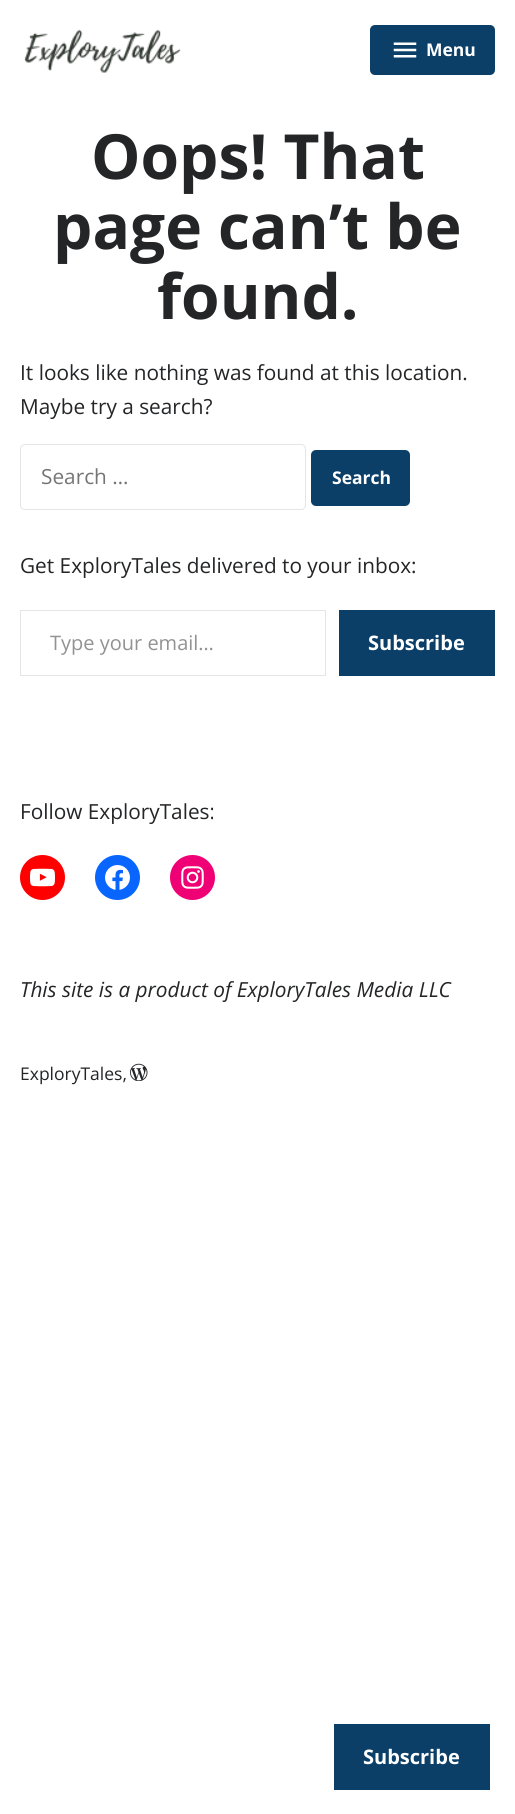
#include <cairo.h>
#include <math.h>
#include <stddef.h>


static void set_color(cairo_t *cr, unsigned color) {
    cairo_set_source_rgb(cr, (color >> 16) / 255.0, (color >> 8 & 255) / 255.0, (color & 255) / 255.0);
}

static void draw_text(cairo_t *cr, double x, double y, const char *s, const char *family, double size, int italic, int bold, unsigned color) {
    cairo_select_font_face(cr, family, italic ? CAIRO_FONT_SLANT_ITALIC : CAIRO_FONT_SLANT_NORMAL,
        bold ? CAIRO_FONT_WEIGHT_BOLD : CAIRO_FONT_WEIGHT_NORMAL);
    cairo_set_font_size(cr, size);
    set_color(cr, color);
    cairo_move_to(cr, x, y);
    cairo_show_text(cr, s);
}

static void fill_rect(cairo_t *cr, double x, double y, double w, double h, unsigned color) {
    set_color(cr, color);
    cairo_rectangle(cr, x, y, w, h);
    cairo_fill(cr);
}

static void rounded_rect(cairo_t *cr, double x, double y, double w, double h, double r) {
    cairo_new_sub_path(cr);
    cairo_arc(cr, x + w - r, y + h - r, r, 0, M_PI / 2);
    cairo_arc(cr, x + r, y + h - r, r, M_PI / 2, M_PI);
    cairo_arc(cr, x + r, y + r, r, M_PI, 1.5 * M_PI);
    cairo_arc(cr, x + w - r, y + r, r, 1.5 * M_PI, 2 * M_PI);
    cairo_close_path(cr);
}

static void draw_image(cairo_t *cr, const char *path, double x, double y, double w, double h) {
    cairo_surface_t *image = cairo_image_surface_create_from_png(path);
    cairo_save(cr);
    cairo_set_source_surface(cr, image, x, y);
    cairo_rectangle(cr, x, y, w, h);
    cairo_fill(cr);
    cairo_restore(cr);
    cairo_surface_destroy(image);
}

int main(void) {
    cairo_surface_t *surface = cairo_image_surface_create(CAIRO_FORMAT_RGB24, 515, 1814);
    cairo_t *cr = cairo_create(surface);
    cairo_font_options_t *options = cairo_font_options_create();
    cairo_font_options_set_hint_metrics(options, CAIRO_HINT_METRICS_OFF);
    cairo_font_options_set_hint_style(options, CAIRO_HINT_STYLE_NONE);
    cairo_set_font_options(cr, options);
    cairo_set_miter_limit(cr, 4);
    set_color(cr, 0xFFFFFF);
    cairo_paint(cr);
    draw_image(cr, "assets/img1.png", 24, 29, 157, 44);
    set_color(cr, 0x0C3F68);
    rounded_rect(cr, 370, 25, 125, 50, 5);
    cairo_fill(cr);
    draw_image(cr, "assets/img2.png", 393, 42, 24, 16);
    draw_text(cr, 426, 56, "Menu", "Open Sans", 17.5, 0, 1, 0xFFFFFF);
    draw_text(cr, 91, 179, "Oops! That", "Open Sans", 62.25, 0, 1, 0x242527);
    draw_text(cr, 53, 249, "page can’t be", "Open Sans", 62.25, 0, 1, 0x242527);
    draw_text(cr, 157, 319, "found.", "Open Sans", 62.25, 0, 1, 0x242527);
    draw_text(cr, 20, 380, "It looks like nothing was found at this location.", "Open Sans", 20.8, 0, 0, 0x242527);
    draw_text(cr, 20, 414, "Maybe try a search?", "Open Sans", 20.8, 0, 0, 0x242527);
    rounded_rect(cr, 20.5, 444.5, 285, 65, 4.5);
    set_color(cr, 0xE5E5E5);
    cairo_set_line_width(cr, 1);
    cairo_stroke(cr);
    draw_text(cr, 41, 484, "Search …", "Open Sans", 20.8, 0, 0, 0x757575);
    set_color(cr, 0x0C3F68);
    rounded_rect(cr, 311, 450, 99, 56, 5);
    cairo_fill(cr);
    draw_text(cr, 332, 484, "Search", "Open Sans", 17.5, 0, 1, 0xFFFFFF);
    draw_text(cr, 20, 573, "Get ExploryTales delivered to your inbox:", "Open Sans", 20.8, 0, 0, 0x242527);
    cairo_rectangle(cr, 20.5, 610.5, 305, 65);
    set_color(cr, 0xE5E5E5);
    cairo_stroke(cr);
    draw_text(cr, 50, 650, "Type your email…", "Open Sans", 20, 0, 0, 0x929293);
    fill_rect(cr, 339, 610, 156, 66, 0x0C3F68);
    draw_text(cr, 368, 650, "Subscribe", "Open Sans", 20, 0, 1, 0xFFFFFF);
    draw_text(cr, 20, 819, "Follow ExploryTales:", "Open Sans", 20.8, 0, 0, 0x242527);
    set_color(cr, 0xFF0000);
    cairo_new_path(cr);
    cairo_arc(cr, 42.5, 877.5, 22.5, 0, 2 * M_PI);
    cairo_fill(cr);
    draw_image(cr, "assets/img3.png", 30, 868, 25, 19);
    set_color(cr, 0x0866FF);
    cairo_arc(cr, 117.5, 877.5, 22.5, 0, 2 * M_PI);
    cairo_fill(cr);
    draw_image(cr, "assets/img4.png", 105, 865, 25, 25);
    set_color(cr, 0xF00075);
    cairo_arc(cr, 192.5, 877.5, 22.5, 0, 2 * M_PI);
    cairo_fill(cr);
    draw_image(cr, "assets/img5.png", 181, 866, 23, 23);
    draw_text(cr, 20, 997, "This site is a product of ExploryTales Media LLC", "Open Sans", 20.8, 1, 0, 0x242527);
    draw_text(cr, 20, 1080, "ExploryTales,", "Open Sans", 17.5, 0, 0, 0x242527);
    draw_image(cr, "assets/img6.png", 130, 1063, 18, 18);
    fill_rect(cr, 334, 1724, 156, 66, 0x0C3F68);
    draw_text(cr, 363, 1764, "Subscribe", "Open Sans", 20, 0, 1, 0xFFFFFF);
    cairo_surface_write_to_png(surface, "output.png");
    cairo_font_options_destroy(options);
    cairo_destroy(cr);
    cairo_surface_destroy(surface);
    return 0;
}
